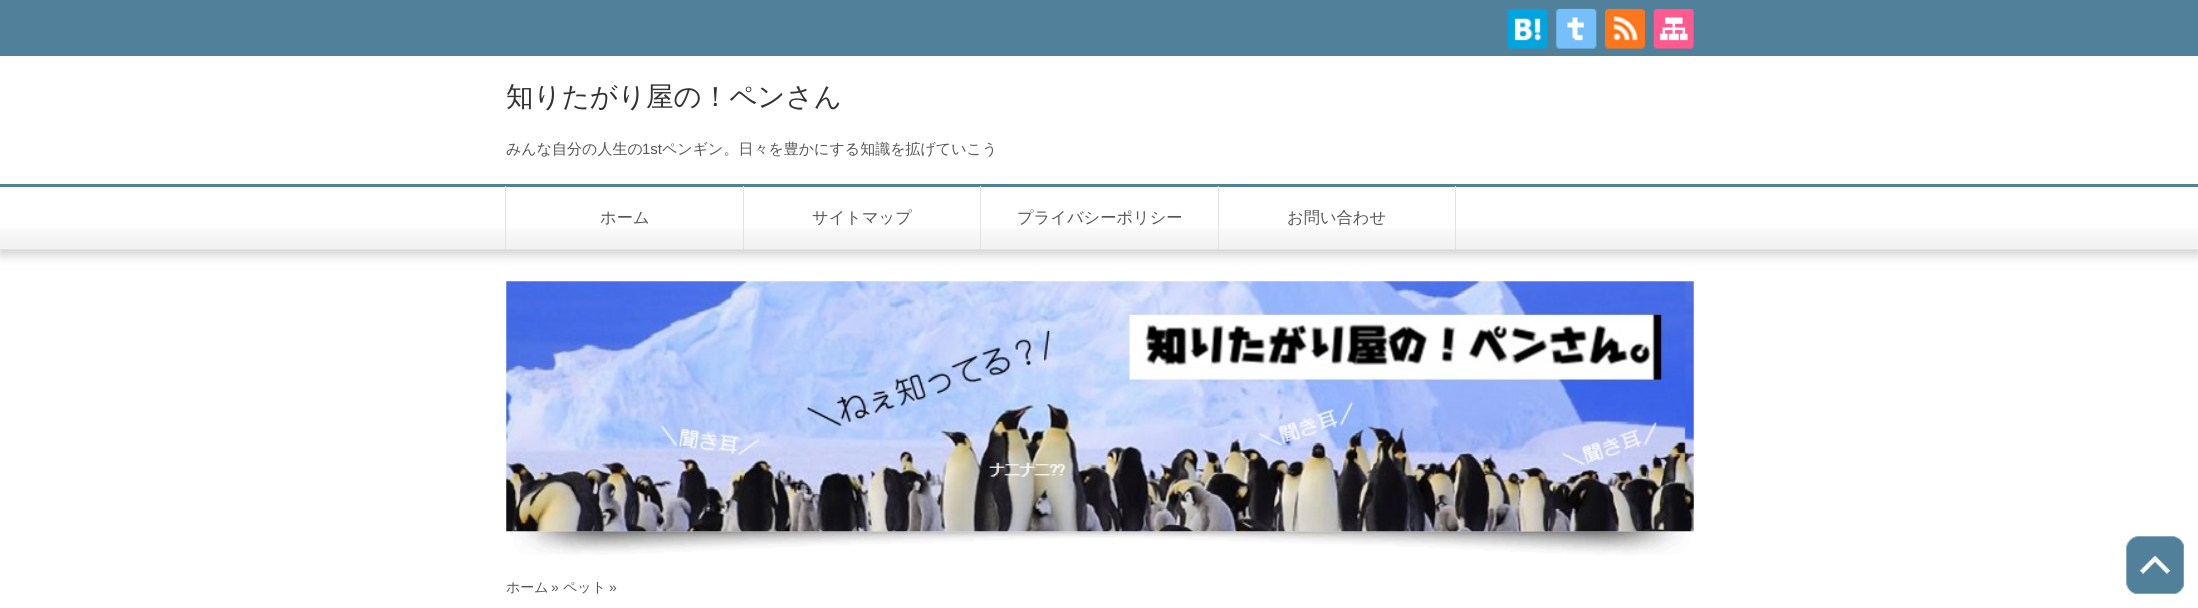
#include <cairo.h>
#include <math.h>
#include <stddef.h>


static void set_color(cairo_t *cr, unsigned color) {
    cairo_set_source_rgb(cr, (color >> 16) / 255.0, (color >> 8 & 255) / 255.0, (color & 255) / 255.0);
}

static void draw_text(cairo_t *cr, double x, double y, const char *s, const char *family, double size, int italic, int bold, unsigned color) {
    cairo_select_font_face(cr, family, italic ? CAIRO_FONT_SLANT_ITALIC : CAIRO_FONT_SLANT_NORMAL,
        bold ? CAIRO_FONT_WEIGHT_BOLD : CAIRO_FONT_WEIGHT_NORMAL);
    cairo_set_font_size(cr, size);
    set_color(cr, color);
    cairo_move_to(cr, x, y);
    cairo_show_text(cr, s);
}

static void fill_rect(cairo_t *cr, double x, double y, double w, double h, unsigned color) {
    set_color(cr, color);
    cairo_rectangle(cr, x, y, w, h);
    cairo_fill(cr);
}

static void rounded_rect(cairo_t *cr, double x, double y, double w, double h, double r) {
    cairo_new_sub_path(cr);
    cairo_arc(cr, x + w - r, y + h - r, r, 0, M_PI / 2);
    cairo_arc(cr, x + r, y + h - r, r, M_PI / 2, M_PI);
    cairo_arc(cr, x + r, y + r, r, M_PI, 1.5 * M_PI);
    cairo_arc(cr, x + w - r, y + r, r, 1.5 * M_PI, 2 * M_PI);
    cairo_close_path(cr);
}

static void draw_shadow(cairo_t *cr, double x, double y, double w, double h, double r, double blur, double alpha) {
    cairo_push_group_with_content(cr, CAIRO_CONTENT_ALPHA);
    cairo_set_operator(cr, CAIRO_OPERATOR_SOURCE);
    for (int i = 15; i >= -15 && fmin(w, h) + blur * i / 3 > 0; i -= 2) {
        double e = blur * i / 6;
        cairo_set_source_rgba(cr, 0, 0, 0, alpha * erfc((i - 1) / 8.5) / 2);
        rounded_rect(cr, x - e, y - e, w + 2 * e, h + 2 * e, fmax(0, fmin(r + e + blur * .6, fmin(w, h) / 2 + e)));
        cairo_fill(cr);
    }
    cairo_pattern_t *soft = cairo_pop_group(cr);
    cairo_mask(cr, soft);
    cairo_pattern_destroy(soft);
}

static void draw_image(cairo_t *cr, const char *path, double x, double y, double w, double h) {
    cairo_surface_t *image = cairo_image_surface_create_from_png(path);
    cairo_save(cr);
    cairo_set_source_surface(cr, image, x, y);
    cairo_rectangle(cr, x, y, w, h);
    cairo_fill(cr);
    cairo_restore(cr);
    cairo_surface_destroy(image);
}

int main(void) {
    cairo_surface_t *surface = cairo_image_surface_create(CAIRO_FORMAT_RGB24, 2198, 608);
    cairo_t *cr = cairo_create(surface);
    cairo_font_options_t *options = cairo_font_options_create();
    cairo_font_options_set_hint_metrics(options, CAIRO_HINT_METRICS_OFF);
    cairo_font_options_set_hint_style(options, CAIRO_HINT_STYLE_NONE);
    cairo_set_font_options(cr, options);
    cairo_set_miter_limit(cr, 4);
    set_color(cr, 0xFFFFFF);
    cairo_paint(cr);
    cairo_save(cr);
    cairo_rectangle(cr, 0, 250, 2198, 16);
    cairo_clip(cr);
    set_color(cr, 0xCCCCCC);
    draw_shadow(cr, 0, 4, 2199, 250, 0, 6, 1);
    cairo_restore(cr);
    fill_rect(cr, 0, 0, 2198, 56, 0x51809B);
    draw_image(cr, "assets/img1.png", 1507, 8, 41, 41);
    draw_image(cr, "assets/img2.png", 1556, 8, 41, 41);
    draw_image(cr, "assets/img3.png", 1605, 8, 40, 41);
    draw_image(cr, "assets/img4.png", 1653, 8, 41, 41);
    draw_text(cr, 506, 106, "知りたがり屋の！ペンさん", "WenQuanYi Zen Hei Medium", 27.5, 0, 0, 0x333333);
    draw_text(cr, 506, 154, "みんな自分の人生の", "WenQuanYi Zen Hei Medium", 15, 0, 0, 0x555555);
    draw_text(cr, 642, 154, "1st", "Liberation Sans", 15, 0, 0, 0x555555);
    draw_text(cr, 662, 154, "ペンギン。日々を豊かにする知識を拡げていこう", "WenQuanYi Zen Hei Medium", 15, 0, 0, 0x555555);
    draw_image(cr, "assets/img5.png", 0, 228, 2198, 21);
    fill_rect(cr, 0, 184, 2198, 3, 0x51809B);
    fill_rect(cr, 0, 249, 2198, 1, 0xE2E2E2);
    fill_rect(cr, 505, 186, 1, 63, 0xE2E2E2);
    fill_rect(cr, 743, 186, 1, 63, 0xE2E2E2);
    draw_text(cr, 600, 223, "ホーム", "WenQuanYi Zen Hei Medium", 16.25, 0, 0, 0x555555);
    fill_rect(cr, 980, 186, 1, 63, 0xE2E2E2);
    draw_text(cr, 812, 223, "サイトマップ", "WenQuanYi Zen Hei Medium", 16.25, 0, 0, 0x555555);
    fill_rect(cr, 1218, 186, 1, 63, 0xE2E2E2);
    draw_text(cr, 1017, 223, "プライバシーポリシー", "WenQuanYi Zen Hei Medium", 16.25, 0, 0, 0x555555);
    fill_rect(cr, 1455, 186, 1, 63, 0xE2E2E2);
    draw_text(cr, 1287, 223, "お問い合わせ", "WenQuanYi Zen Hei Medium", 16.25, 0, 0, 0x555555);
    draw_image(cr, "assets/img7.png", 511, 531, 1181, 24);
    draw_image(cr, "assets/img6.png", 506, 281, 1188, 251);
    draw_text(cr, 506, 592, "ホーム", "WenQuanYi Zen Hei Medium", 14, 0, 0, 0x555555);
    draw_text(cr, 551, 592, "»", "Liberation Sans", 14, 0, 0, 0x555555);
    draw_text(cr, 563, 592, "ペット", "WenQuanYi Zen Hei Medium", 14, 0, 0, 0x555555);
    draw_text(cr, 609, 592, "»", "Liberation Sans", 14, 0, 0, 0x555555);
    draw_image(cr, "assets/img8.png", 2126, 536, 58, 58);
    cairo_surface_write_to_png(surface, "output.png");
    cairo_font_options_destroy(options);
    cairo_destroy(cr);
    cairo_surface_destroy(surface);
    return 0;
}
